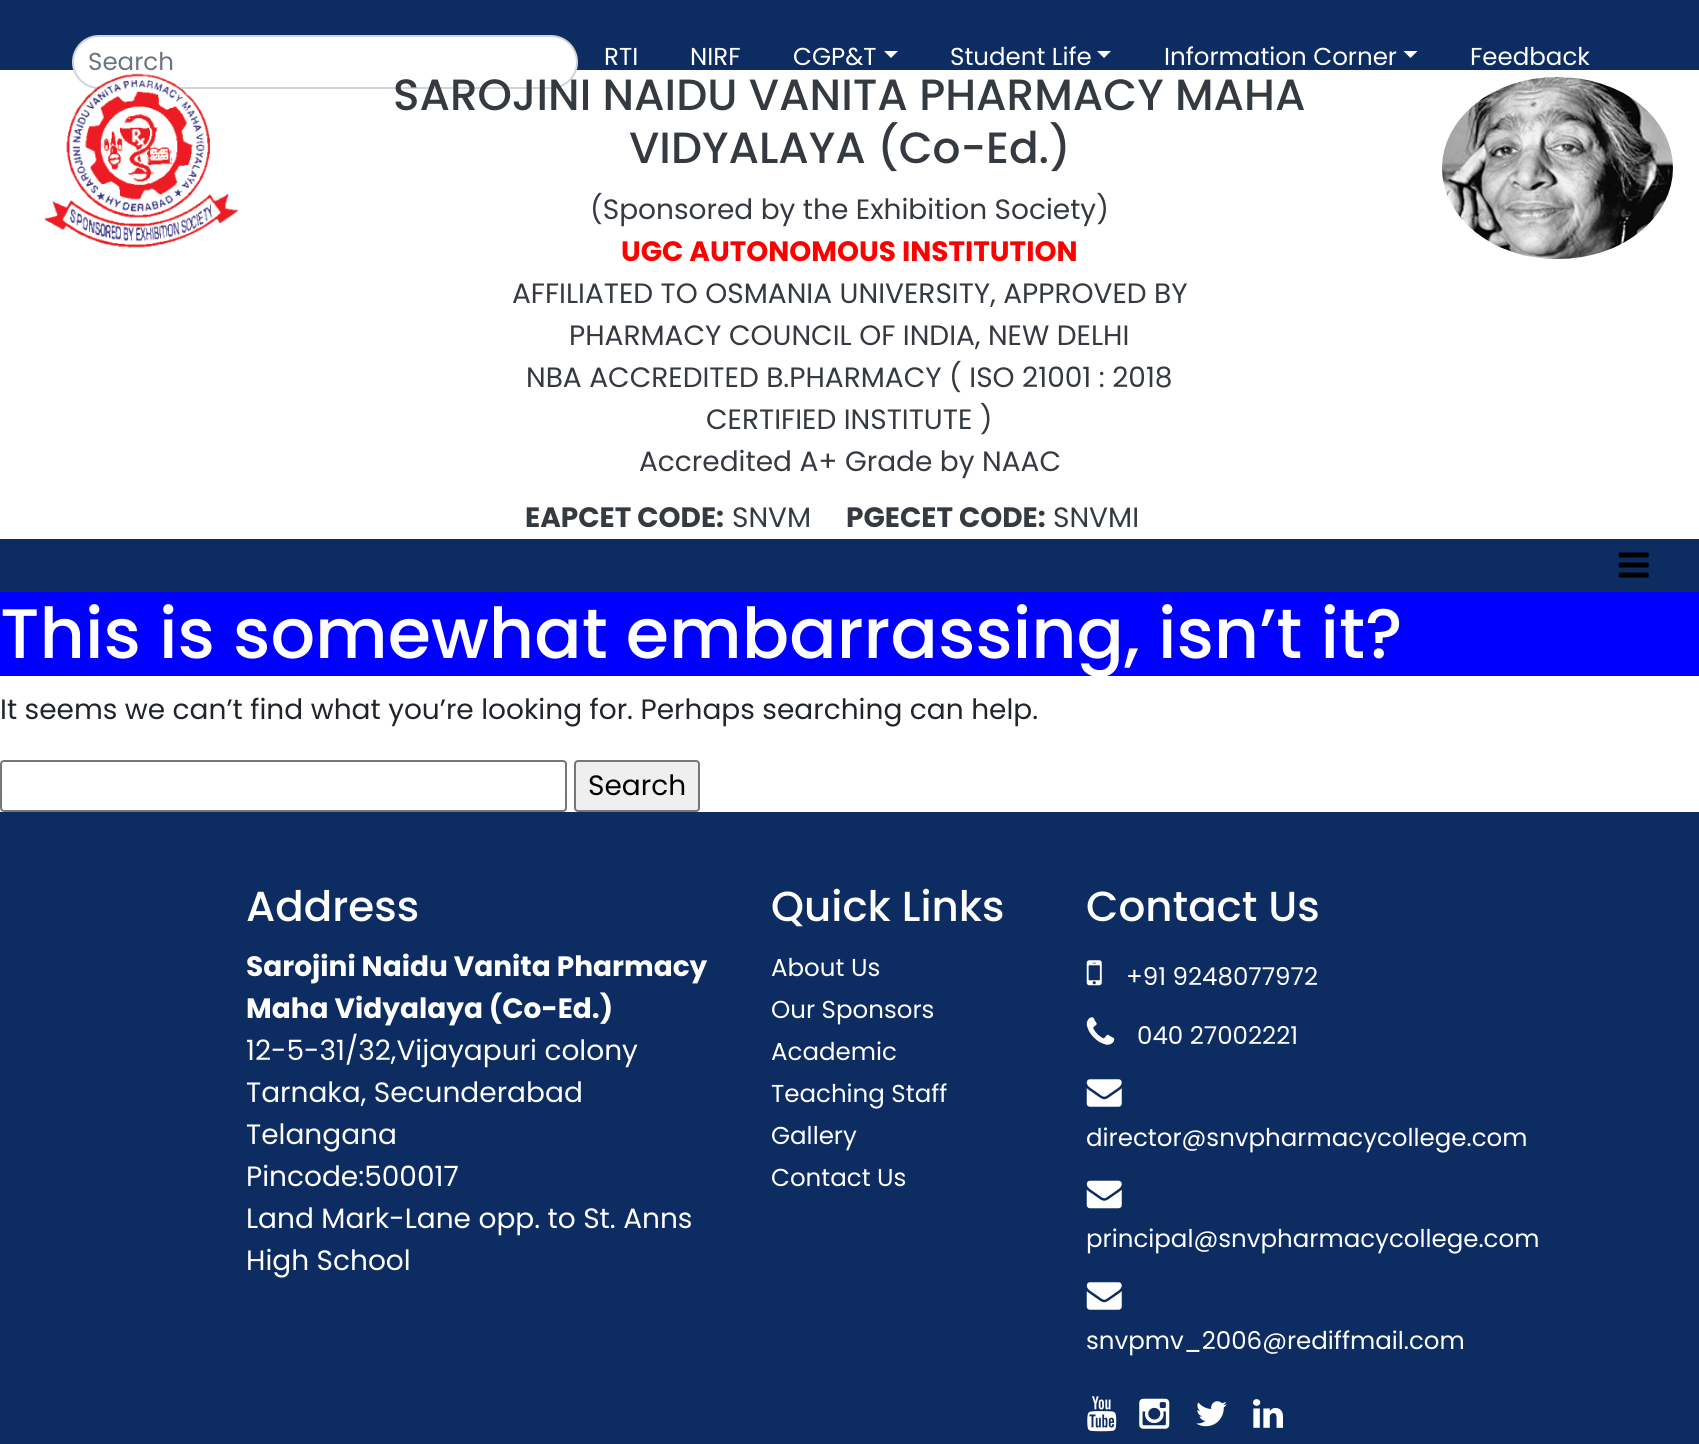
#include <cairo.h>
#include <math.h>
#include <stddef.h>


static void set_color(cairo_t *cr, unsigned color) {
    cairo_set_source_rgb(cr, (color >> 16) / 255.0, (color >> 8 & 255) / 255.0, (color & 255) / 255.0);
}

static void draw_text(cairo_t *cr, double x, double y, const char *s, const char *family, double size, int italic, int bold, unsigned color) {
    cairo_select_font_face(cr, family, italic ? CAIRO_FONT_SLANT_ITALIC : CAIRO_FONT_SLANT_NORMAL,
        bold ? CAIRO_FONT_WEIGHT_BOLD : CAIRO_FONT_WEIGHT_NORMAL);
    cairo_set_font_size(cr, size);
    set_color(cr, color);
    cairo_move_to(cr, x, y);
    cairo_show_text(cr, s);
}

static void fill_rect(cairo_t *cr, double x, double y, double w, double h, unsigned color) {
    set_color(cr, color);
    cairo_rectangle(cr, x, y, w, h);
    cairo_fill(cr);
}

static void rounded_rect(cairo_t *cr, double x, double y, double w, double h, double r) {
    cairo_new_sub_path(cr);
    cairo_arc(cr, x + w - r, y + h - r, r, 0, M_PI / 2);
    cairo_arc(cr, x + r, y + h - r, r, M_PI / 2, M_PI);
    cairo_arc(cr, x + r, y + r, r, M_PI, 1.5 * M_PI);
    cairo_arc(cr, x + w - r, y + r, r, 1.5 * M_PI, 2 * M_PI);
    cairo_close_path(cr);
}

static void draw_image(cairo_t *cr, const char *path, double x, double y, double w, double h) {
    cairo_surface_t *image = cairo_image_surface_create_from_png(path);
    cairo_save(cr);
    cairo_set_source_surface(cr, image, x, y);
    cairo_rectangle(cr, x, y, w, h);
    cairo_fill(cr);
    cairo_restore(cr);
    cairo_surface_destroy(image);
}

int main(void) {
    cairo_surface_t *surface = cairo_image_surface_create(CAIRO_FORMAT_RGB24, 1699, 1444);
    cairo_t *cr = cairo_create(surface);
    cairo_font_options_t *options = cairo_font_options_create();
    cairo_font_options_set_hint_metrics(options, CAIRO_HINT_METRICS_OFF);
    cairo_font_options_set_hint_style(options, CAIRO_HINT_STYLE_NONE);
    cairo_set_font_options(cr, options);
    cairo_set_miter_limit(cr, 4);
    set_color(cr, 0xFFFFFF);
    cairo_paint(cr);
    fill_rect(cr, 0, 0, 1699, 70, 0x0D2D62);
    set_color(cr, 0xFFFFFF);
    rounded_rect(cr, 73, 36, 504, 52, 26);
    cairo_fill_preserve(cr);
    set_color(cr, 0xCED4DA);
    cairo_stroke(cr);
    draw_text(cr, 88, 70, "Search", "Poppins", 24.5, 0, 0, 0x6C757D);
    draw_text(cr, 604, 65, "RTI", "Poppins", 24.5, 0, 0, 0xFFFFFF);
    draw_text(cr, 690, 65, "NIRF", "Poppins", 24.5, 0, 0, 0xFFFFFF);
    draw_text(cr, 793, 65, "CGP&T", "Poppins", 24.5, 0, 0, 0xFFFFFF);
    cairo_new_path(cr);
    cairo_move_to(cr, 884, 51);
    cairo_line_to(cr, 898, 51);
    cairo_line_to(cr, 891, 58);
    cairo_close_path(cr);
    cairo_fill(cr);
    draw_text(cr, 950, 65, "Student Life", "Poppins", 24.5, 0, 0, 0xFFFFFF);
    cairo_new_path(cr);
    cairo_move_to(cr, 1097, 51);
    cairo_line_to(cr, 1111, 51);
    cairo_line_to(cr, 1104, 58);
    cairo_close_path(cr);
    cairo_fill(cr);
    draw_text(cr, 1164, 65, "Information Corner", "Poppins", 24.5, 0, 0, 0xFFFFFF);
    cairo_new_path(cr);
    cairo_move_to(cr, 1403.5, 51);
    cairo_line_to(cr, 1417.5, 51);
    cairo_line_to(cr, 1410.5, 58);
    cairo_close_path(cr);
    cairo_fill(cr);
    draw_text(cr, 1470, 65, "Feedback", "Poppins", 24.5, 0, 0, 0xFFFFFF);
    draw_image(cr, "assets/img1.png", 44, 73, 195, 176);
    draw_text(cr, 393, 110, "SAROJINI NAIDU VANITA PHARMACY MAHA", "Poppins Medium", 43.75, 0, 0, 0x343A40);
    draw_text(cr, 629, 163, "VIDYALAYA (Co-Ed.)", "Poppins Medium", 43.75, 0, 0, 0x343A40);
    draw_text(cr, 590, 219, "(Sponsored by the Exhibition Society)", "Poppins", 28, 0, 0, 0x343A40);
    draw_text(cr, 621, 261, "UGC AUTONOMOUS INSTITUTION", "Poppins", 28, 0, 1, 0xFF0000);
    draw_text(cr, 512, 303, "AFFILIATED TO OSMANIA UNIVERSITY, APPROVED BY", "Poppins", 28, 0, 0, 0x343A40);
    draw_text(cr, 569, 345, "PHARMACY COUNCIL OF INDIA, NEW DELHI", "Poppins", 28, 0, 0, 0x343A40);
    draw_text(cr, 526, 387, "NBA ACCREDITED B.PHARMACY ( ISO 21001 : 2018", "Poppins", 28, 0, 0, 0x343A40);
    draw_text(cr, 706, 429, "CERTIFIED INSTITUTE )", "Poppins", 28, 0, 0, 0x343A40);
    draw_text(cr, 639, 471, "Accredited A+ Grade by NAAC", "Poppins", 28, 0, 0, 0x343A40);
    draw_text(cr, 525, 527, "EAPCET CODE:", "Poppins", 28, 0, 1, 0x343A40);
    draw_text(cr, 732, 527, "SNVM", "Poppins", 28, 0, 0, 0x343A40);
    draw_text(cr, 846, 527, "PGECET CODE:", "Poppins", 28, 0, 1, 0x343A40);
    draw_text(cr, 1053, 527, "SNVMI", "Poppins", 28, 0, 0, 0x343A40);
    draw_image(cr, "assets/img2.png", 1442, 77, 231, 182);
    fill_rect(cr, 0, 539, 1699, 53, 0x0D2D62);
    draw_image(cr, "assets/img3.png", 1618, 552, 31, 26);
    fill_rect(cr, 0, 592, 1699, 84, 0x0000FE);
    draw_text(cr, 0, 658, "This is somewhat embarrassing, isn’t it?", "Poppins Medium", 70, 0, 0, 0xFFFFFF);
    draw_text(cr, 0, 719, "It seems we can’t find what you’re looking for. Perhaps searching can help.", "Poppins", 28, 0, 0, 0x212529);
    rounded_rect(cr, 1, 761, 565, 50, 3);
    set_color(cr, 0x767676);
    cairo_stroke(cr);
    set_color(cr, 0xEFEFEF);
    rounded_rect(cr, 575, 761, 124, 50, 3);
    cairo_fill_preserve(cr);
    set_color(cr, 0x767676);
    cairo_stroke(cr);
    draw_text(cr, 588, 795, "Search", "Poppins", 28, 0, 0, 0x000000);
    fill_rect(cr, 0, 812, 1699, 632, 0x0D2D62);
    draw_text(cr, 246, 921, "Address", "Poppins Medium", 42, 0, 0, 0xFFFFFF);
    draw_text(cr, 246, 976, "Sarojini Naidu Vanita Pharmacy", "Poppins", 28, 0, 1, 0xFFFFFF);
    draw_text(cr, 246, 1018, "Maha Vidyalaya (Co-Ed.)", "Poppins", 28, 0, 1, 0xFFFFFF);
    draw_text(cr, 246, 1060, "12-5-31/32,Vijayapuri colony", "Poppins", 28, 0, 0, 0xFFFFFF);
    draw_text(cr, 246, 1102, "Tarnaka, Secunderabad", "Poppins", 28, 0, 0, 0xFFFFFF);
    draw_text(cr, 246, 1144, "Telangana", "Poppins", 28, 0, 0, 0xFFFFFF);
    draw_text(cr, 246, 1186, "Pincode:500017", "Poppins", 28, 0, 0, 0xFFFFFF);
    draw_text(cr, 246, 1228, "Land Mark-Lane opp. to St. Anns", "Poppins", 28, 0, 0, 0xFFFFFF);
    draw_text(cr, 246, 1270, "High School", "Poppins", 28, 0, 0, 0xFFFFFF);
    draw_text(cr, 771, 921, "Quick Links", "Poppins Medium", 42, 0, 0, 0xFFFFFF);
    draw_text(cr, 771, 976, "About Us", "Poppins", 24.5, 0, 0, 0xFFFFFF);
    draw_text(cr, 771, 1018, "Our Sponsors", "Poppins", 24.5, 0, 0, 0xFFFFFF);
    draw_text(cr, 771, 1060, "Academic", "Poppins", 24.5, 0, 0, 0xFFFFFF);
    draw_text(cr, 771, 1102, "Teaching Staff", "Poppins", 24.5, 0, 0, 0xFFFFFF);
    draw_text(cr, 771, 1144, "Gallery", "Poppins", 24.5, 0, 0, 0xFFFFFF);
    draw_text(cr, 771, 1186, "Contact Us", "Poppins", 24.5, 0, 0, 0xFFFFFF);
    draw_text(cr, 1086, 921, "Contact Us", "Poppins Medium", 42, 0, 0, 0xFFFFFF);
    draw_image(cr, "assets/img4.png", 1086, 960, 16, 26);
    draw_text(cr, 1126, 985, "+91 9248077972", "Poppins", 24.5, 0, 0, 0xFFFFFF);
    draw_image(cr, "assets/img5.png", 1086, 1017, 29, 28);
    draw_text(cr, 1137, 1044, "040 27002221", "Poppins", 24.5, 0, 0, 0xFFFFFF);
    draw_image(cr, "assets/img6.png", 1086, 1079, 36, 28);
    draw_text(cr, 1086, 1146, "director@snvpharmacycollege.com", "Poppins", 24.5, 0, 0, 0xFFFFFF);
    draw_image(cr, "assets/img7.png", 1086, 1180, 36, 29);
    draw_text(cr, 1086, 1247, "principal@snvpharmacycollege.com", "Poppins", 24.5, 0, 0, 0xFFFFFF);
    draw_image(cr, "assets/img6.png", 1086, 1282, 36, 28);
    draw_text(cr, 1086, 1349, "snvpmv_2006@rediffmail.com", "Poppins", 24.5, 0, 0, 0xFFFFFF);
    draw_image(cr, "assets/img8.png", 1087, 1396, 30, 36);
    draw_image(cr, "assets/img9.png", 1139, 1398, 31, 31);
    draw_image(cr, "assets/img10.png", 1196, 1401, 31, 26);
    draw_image(cr, "assets/img11.png", 1253, 1399, 30, 29);
    cairo_surface_write_to_png(surface, "output.png");
    cairo_font_options_destroy(options);
    cairo_destroy(cr);
    cairo_surface_destroy(surface);
    return 0;
}
